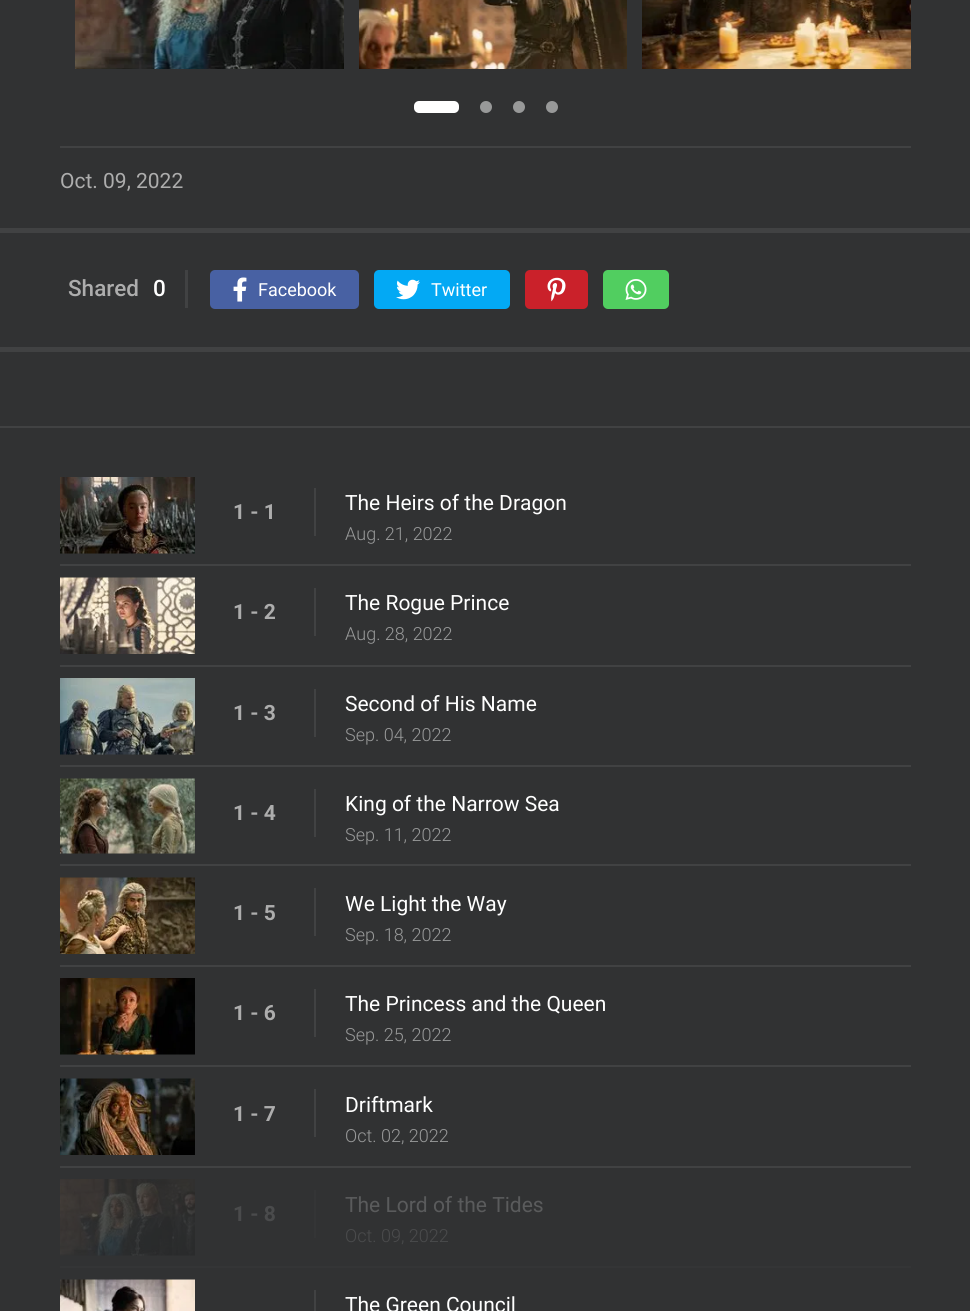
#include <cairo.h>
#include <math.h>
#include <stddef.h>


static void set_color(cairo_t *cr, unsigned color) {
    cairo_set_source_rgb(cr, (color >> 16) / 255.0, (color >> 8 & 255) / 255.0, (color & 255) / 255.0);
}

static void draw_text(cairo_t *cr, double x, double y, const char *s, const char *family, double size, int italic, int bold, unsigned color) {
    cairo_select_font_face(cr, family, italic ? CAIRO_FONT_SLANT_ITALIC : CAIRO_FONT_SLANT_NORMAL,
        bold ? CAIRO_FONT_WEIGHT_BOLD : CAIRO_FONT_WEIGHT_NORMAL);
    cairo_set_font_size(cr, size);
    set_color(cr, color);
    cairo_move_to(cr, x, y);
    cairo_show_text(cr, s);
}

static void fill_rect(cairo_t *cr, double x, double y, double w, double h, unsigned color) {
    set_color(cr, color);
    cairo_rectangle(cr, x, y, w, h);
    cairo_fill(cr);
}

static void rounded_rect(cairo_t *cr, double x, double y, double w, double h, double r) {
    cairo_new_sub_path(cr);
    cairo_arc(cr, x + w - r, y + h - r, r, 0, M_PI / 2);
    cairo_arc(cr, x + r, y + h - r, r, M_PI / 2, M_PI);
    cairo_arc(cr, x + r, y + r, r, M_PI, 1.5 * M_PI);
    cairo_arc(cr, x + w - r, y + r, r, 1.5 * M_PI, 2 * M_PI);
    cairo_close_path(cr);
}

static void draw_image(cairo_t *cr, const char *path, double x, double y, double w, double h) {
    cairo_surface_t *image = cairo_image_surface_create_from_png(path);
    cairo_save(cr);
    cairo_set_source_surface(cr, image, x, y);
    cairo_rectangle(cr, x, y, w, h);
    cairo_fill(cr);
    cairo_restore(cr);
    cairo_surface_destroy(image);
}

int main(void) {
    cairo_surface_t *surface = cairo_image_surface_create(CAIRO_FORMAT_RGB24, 970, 1311);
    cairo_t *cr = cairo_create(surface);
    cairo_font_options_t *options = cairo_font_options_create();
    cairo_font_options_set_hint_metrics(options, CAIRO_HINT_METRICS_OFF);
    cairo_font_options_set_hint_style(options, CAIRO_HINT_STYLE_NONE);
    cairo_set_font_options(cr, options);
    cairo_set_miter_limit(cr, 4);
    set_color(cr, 0x313233);
    cairo_paint(cr);
    fill_rect(cr, 0, 228, 970, 5, 0x414243);
    fill_rect(cr, 60, 146, 851, 2, 0x414243);
    draw_image(cr, "assets/img1.png", 75, 0, 269, 69);
    draw_image(cr, "assets/img2.png", 359, 0, 268, 69);
    draw_image(cr, "assets/img3.png", 642, 0, 269, 69);
    set_color(cr, 0xFFFFFF);
    rounded_rect(cr, 414, 101, 45, 12, 5);
    cairo_fill(cr);
    set_color(cr, 0x989999);
    cairo_arc(cr, 486, 107, 6, 0, 2 * M_PI);
    cairo_fill(cr);
    cairo_arc(cr, 519, 107, 6, 0, 2 * M_PI);
    cairo_fill(cr);
    cairo_arc(cr, 552, 107, 6, 0, 2 * M_PI);
    cairo_fill(cr);
    draw_text(cr, 60, 188, "Oct. 09, 2022", "Roboto", 21, 0, 0, 0xADADAD);
    fill_rect(cr, 0, 347, 970, 5, 0x414243);
    fill_rect(cr, 185, 270, 3, 38, 0x414243);
    draw_text(cr, 68, 296, "Shared", "Roboto Medium", 22.5, 0, 0, 0xADADAD);
    draw_text(cr, 153, 296, "0", "Roboto Medium", 22.5, 0, 0, 0xFFFFFF);
    set_color(cr, 0x4861A3);
    rounded_rect(cr, 210, 270, 149, 39, 5);
    cairo_fill(cr);
    draw_image(cr, "assets/img4.png", 233, 277, 14, 25);
    draw_text(cr, 258, 296, "Facebook", "Roboto", 18, 0, 0, 0xFFFFFF);
    set_color(cr, 0x03A9F4);
    rounded_rect(cr, 374, 270, 136, 39, 5);
    cairo_fill(cr);
    draw_image(cr, "assets/img5.png", 396, 279, 24, 21);
    draw_text(cr, 431, 296, "Twitter", "Roboto", 18, 0, 0, 0xFFFFFF);
    set_color(cr, 0xCA212A);
    rounded_rect(cr, 525, 270, 63, 39, 5);
    cairo_fill(cr);
    draw_image(cr, "assets/img6.png", 547, 277, 19, 25);
    set_color(cr, 0x51CE60);
    rounded_rect(cr, 603, 270, 66, 39, 5);
    cairo_fill(cr);
    draw_image(cr, "assets/img7.png", 625, 279, 22, 21);
    fill_rect(cr, 0, 426, 970, 2, 0x414243);
    fill_rect(cr, 60, 564, 851, 2, 0x414243);
    draw_image(cr, "assets/img8.png", 60, 477, 135, 77);
    fill_rect(cr, 314, 488, 2, 48, 0x414243);
    draw_text(cr, 233, 519, "1 - 1", "Roboto", 21, 0, 1, 0xADADAD);
    draw_text(cr, 345, 510, "The Heirs of the Dragon", "Roboto", 21, 0, 0, 0xFFFFFF);
    draw_text(cr, 345, 540, "Aug. 21, 2022", "Roboto Light", 18, 0, 0, 0x989999);
    fill_rect(cr, 60, 665, 851, 2, 0x414243);
    draw_image(cr, "assets/img9.png", 60, 577, 135, 77);
    fill_rect(cr, 314, 588, 2, 48, 0x414243);
    draw_text(cr, 233, 619, "1 - 2", "Roboto", 21, 0, 1, 0xADADAD);
    draw_text(cr, 345, 610, "The Rogue Prince", "Roboto", 21, 0, 0, 0xFFFFFF);
    draw_text(cr, 345, 640, "Aug. 28, 2022", "Roboto Light", 18, 0, 0, 0x989999);
    fill_rect(cr, 60, 765, 851, 2, 0x414243);
    draw_image(cr, "assets/img10.png", 60, 678, 135, 77);
    fill_rect(cr, 314, 689, 2, 48, 0x414243);
    draw_text(cr, 233, 720, "1 - 3", "Roboto", 21, 0, 1, 0xADADAD);
    draw_text(cr, 345, 711, "Second of His Name", "Roboto", 21, 0, 0, 0xFFFFFF);
    draw_text(cr, 345, 741, "Sep. 04, 2022", "Roboto Light", 18, 0, 0, 0x989999);
    fill_rect(cr, 60, 864, 851, 2, 0x414243);
    draw_image(cr, "assets/img11.png", 60, 778, 135, 76);
    fill_rect(cr, 314, 789, 2, 48, 0x414243);
    draw_text(cr, 233, 820, "1 - 4", "Roboto", 21, 0, 1, 0xADADAD);
    draw_text(cr, 345, 811, "King of the Narrow Sea", "Roboto", 21, 0, 0, 0xFFFFFF);
    draw_text(cr, 345, 841, "Sep. 11, 2022", "Roboto Light", 18, 0, 0, 0x989999);
    fill_rect(cr, 60, 965, 851, 2, 0x414243);
    draw_image(cr, "assets/img12.png", 60, 877, 135, 77);
    fill_rect(cr, 314, 888, 2, 48, 0x414243);
    draw_text(cr, 233, 920, "1 - 5", "Roboto", 21, 0, 1, 0xADADAD);
    draw_text(cr, 345, 911, "We Light the Way", "Roboto", 21, 0, 0, 0xFFFFFF);
    draw_text(cr, 345, 941, "Sep. 18, 2022", "Roboto Light", 18, 0, 0, 0x989999);
    fill_rect(cr, 60, 1065, 851, 2, 0x414243);
    draw_image(cr, "assets/img13.png", 60, 978, 135, 77);
    fill_rect(cr, 314, 989, 2, 48, 0x414243);
    draw_text(cr, 233, 1020, "1 - 6", "Roboto", 21, 0, 1, 0xADADAD);
    draw_text(cr, 345, 1011, "The Princess and the Queen", "Roboto", 21, 0, 0, 0xFFFFFF);
    draw_text(cr, 345, 1041, "Sep. 25, 2022", "Roboto Light", 18, 0, 0, 0x989999);
    fill_rect(cr, 60, 1166, 851, 2, 0x414243);
    draw_image(cr, "assets/img14.png", 60, 1078, 135, 77);
    fill_rect(cr, 314, 1089, 2, 48, 0x414243);
    draw_text(cr, 233, 1121, "1 - 7", "Roboto", 21, 0, 1, 0xADADAD);
    draw_text(cr, 345, 1112, "Driftmark", "Roboto", 21, 0, 0, 0xFFFFFF);
    draw_text(cr, 345, 1142, "Oct. 02, 2022", "Roboto Light", 18, 0, 0, 0x989999);
    fill_rect(cr, 60, 1266, 851, 2, 0x343536);
    draw_image(cr, "assets/img15.png", 60, 1179, 135, 77);
    fill_rect(cr, 314, 1190, 2, 48, 0x343536);
    draw_text(cr, 233, 1221, "1 - 8", "Roboto", 21, 0, 1, 0x4A4B4C);
    draw_text(cr, 345, 1212, "The Lord of the Tides", "Roboto", 21, 0, 0, 0x5A5B5C);
    draw_text(cr, 345, 1242, "Oct. 09, 2022", "Roboto Light", 18, 0, 0, 0x4A4B4C);
    draw_image(cr, "assets/img16.png", 60, 1279, 135, 32);
    fill_rect(cr, 314, 1290, 2, 21, 0x414243);
    draw_text(cr, 345, 1312, "The Green Council", "Roboto", 21, 0, 0, 0xFFFFFF);
    cairo_surface_write_to_png(surface, "output.png");
    cairo_font_options_destroy(options);
    cairo_destroy(cr);
    cairo_surface_destroy(surface);
    return 0;
}
